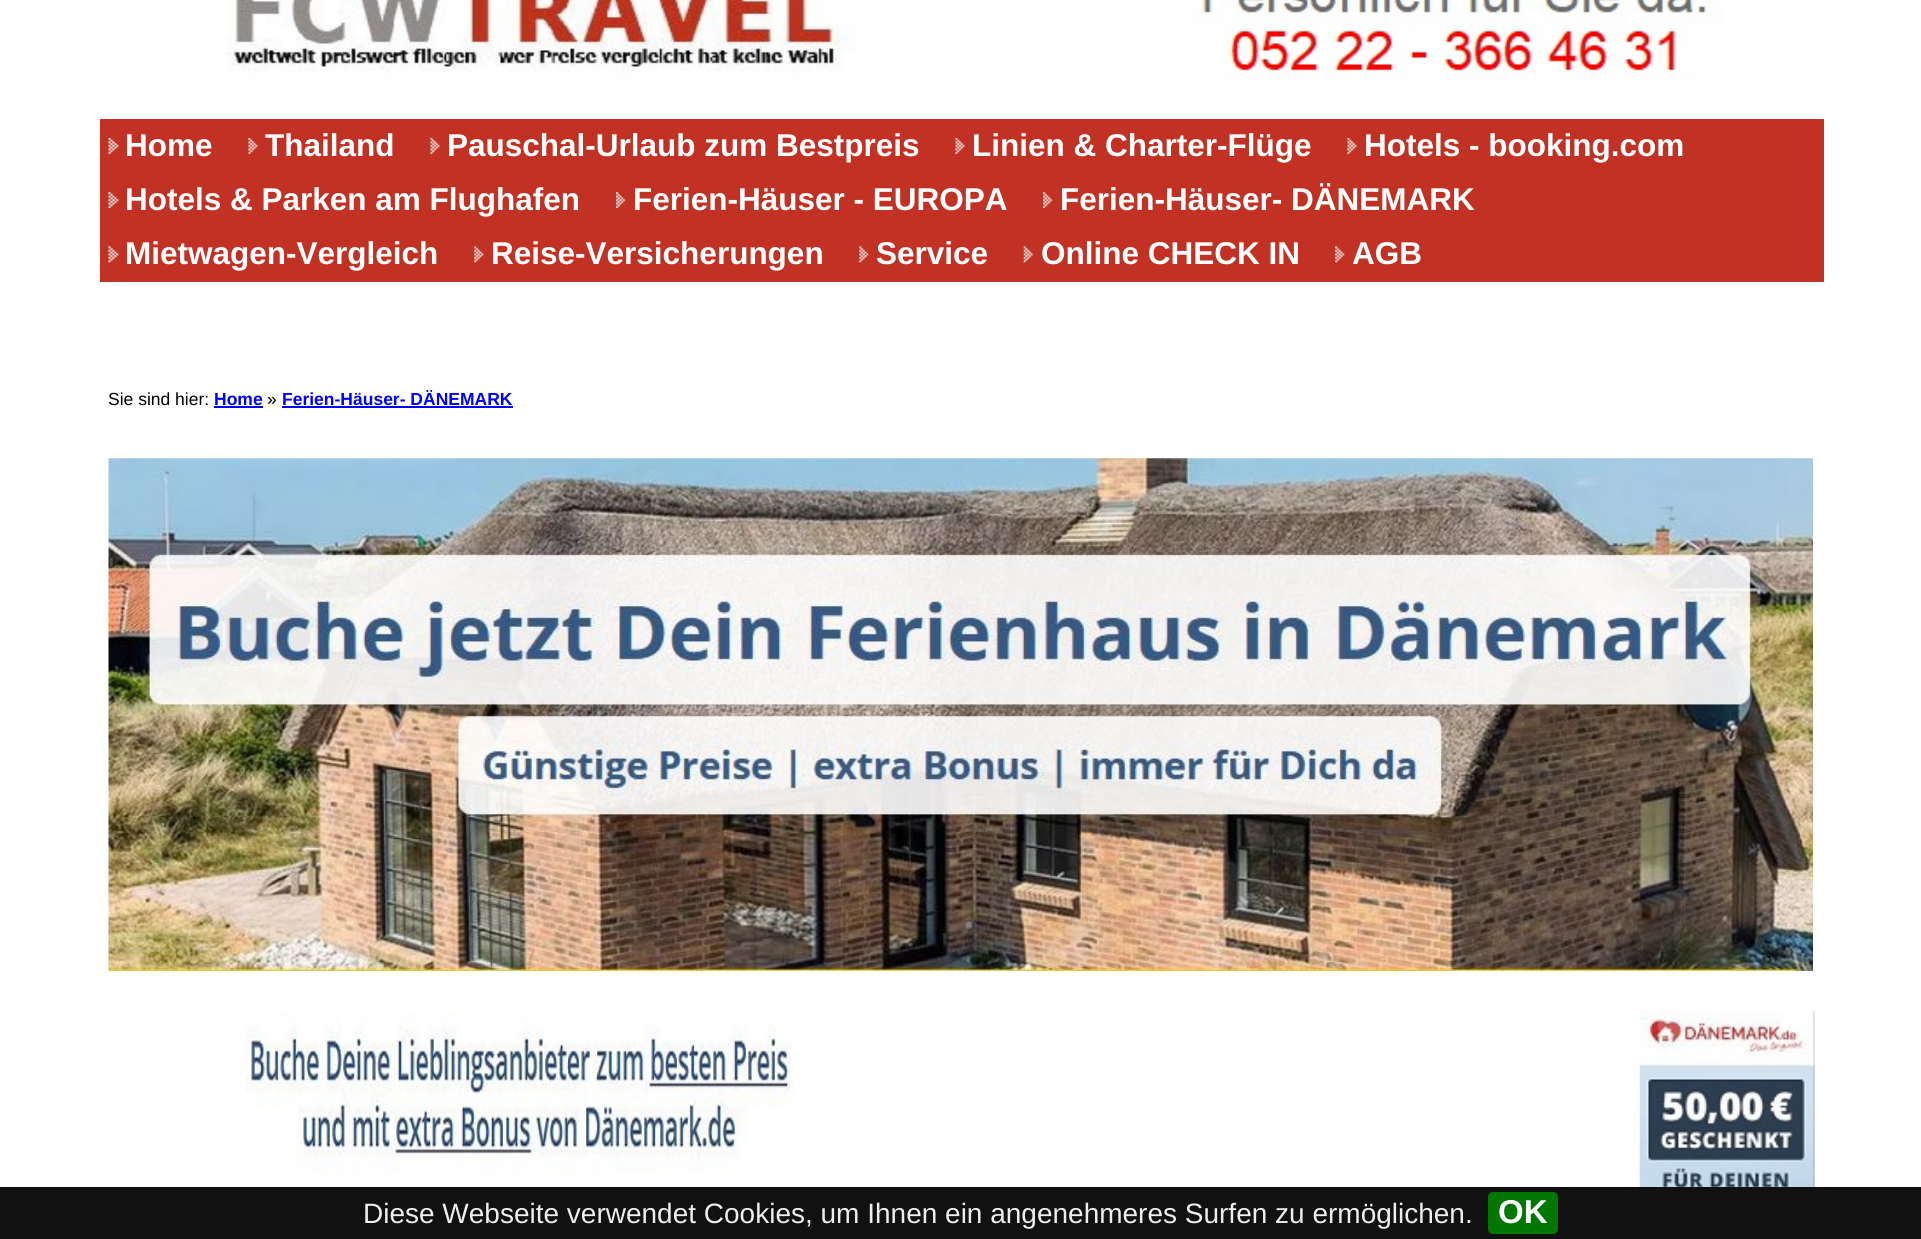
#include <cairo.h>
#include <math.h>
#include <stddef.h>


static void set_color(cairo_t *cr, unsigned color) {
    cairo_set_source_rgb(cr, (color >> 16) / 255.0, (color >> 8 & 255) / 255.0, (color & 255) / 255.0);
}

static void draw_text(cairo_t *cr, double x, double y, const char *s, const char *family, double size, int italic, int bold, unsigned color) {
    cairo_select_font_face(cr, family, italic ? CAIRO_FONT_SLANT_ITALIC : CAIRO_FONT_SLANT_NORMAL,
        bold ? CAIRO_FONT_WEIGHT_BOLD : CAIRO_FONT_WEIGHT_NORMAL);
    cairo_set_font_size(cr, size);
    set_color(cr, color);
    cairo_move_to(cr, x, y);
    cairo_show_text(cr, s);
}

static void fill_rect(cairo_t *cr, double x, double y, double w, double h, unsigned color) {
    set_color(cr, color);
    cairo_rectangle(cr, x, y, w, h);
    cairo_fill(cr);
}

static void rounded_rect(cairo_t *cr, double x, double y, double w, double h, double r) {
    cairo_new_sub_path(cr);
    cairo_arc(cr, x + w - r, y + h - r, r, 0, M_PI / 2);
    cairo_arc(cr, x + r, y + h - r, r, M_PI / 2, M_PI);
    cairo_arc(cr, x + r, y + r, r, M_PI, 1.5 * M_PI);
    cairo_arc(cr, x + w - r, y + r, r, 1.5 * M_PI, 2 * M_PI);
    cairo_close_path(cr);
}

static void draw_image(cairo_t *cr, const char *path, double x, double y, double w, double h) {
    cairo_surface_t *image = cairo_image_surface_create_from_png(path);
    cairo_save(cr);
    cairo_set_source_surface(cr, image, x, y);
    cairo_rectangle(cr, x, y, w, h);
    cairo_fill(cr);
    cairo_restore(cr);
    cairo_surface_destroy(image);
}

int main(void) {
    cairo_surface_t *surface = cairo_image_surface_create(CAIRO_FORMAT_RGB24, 1921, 1239);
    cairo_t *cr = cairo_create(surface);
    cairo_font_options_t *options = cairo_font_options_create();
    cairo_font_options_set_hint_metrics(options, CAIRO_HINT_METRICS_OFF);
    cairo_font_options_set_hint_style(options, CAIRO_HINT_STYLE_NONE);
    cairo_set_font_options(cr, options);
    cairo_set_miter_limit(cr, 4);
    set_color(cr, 0xFFFFFF);
    cairo_paint(cr);
    draw_image(cr, "assets/img1.png", 226, 0, 1497, 80);
    fill_rect(cr, 100, 119, 1724, 163, 0xC13224);
    draw_image(cr, "assets/img2.png", 108, 138, 11, 16);
    draw_text(cr, 125, 156, "Home", "Liberation Sans", 31.5, 0, 1, 0xFFFFFF);
    draw_image(cr, "assets/img3.png", 248, 138, 10, 16);
    draw_text(cr, 265, 156, "Thailand", "Liberation Sans", 31.5, 0, 1, 0xFFFFFF);
    draw_image(cr, "assets/img4.png", 430, 138, 10, 16);
    draw_text(cr, 447, 156, "Pauschal-Urlaub zum Bestpreis", "Liberation Sans", 31.5, 0, 1, 0xFFFFFF);
    draw_image(cr, "assets/img4.png", 955, 138, 10, 16);
    draw_text(cr, 972, 156, "Linien & Charter-Flüge", "Liberation Sans", 31.5, 0, 1, 0xFFFFFF);
    draw_image(cr, "assets/img4.png", 1347, 138, 10, 16);
    draw_text(cr, 1364, 156, "Hotels - booking.com", "Liberation Sans", 31.5, 0, 1, 0xFFFFFF);
    draw_image(cr, "assets/img5.png", 108, 192, 11, 16);
    draw_text(cr, 125, 210, "Hotels & Parken am Flughafen", "Liberation Sans", 31.5, 0, 1, 0xFFFFFF);
    draw_image(cr, "assets/img6.png", 616, 192, 10, 16);
    draw_text(cr, 633, 210, "Ferien-Häuser - EUROPA", "Liberation Sans", 31.5, 0, 1, 0xFFFFFF);
    draw_image(cr, "assets/img6.png", 1043, 192, 10, 16);
    draw_text(cr, 1060, 210, "Ferien-Häuser- DÄNEMARK", "Liberation Sans", 31.5, 0, 1, 0xFFFFFF);
    draw_image(cr, "assets/img7.png", 108, 246, 11, 17);
    draw_text(cr, 125, 264, "Mietwagen-Vergleich", "Liberation Sans", 31.5, 0, 1, 0xFFFFFF);
    draw_image(cr, "assets/img8.png", 474, 246, 10, 17);
    draw_text(cr, 491, 264, "Reise-Versicherungen", "Liberation Sans", 31.5, 0, 1, 0xFFFFFF);
    draw_image(cr, "assets/img8.png", 859, 246, 10, 17);
    draw_text(cr, 876, 264, "Service", "Liberation Sans", 31.5, 0, 1, 0xFFFFFF);
    draw_image(cr, "assets/img9.png", 1023, 246, 10, 17);
    draw_text(cr, 1041, 264, "Online CHECK IN", "Liberation Sans", 31.5, 0, 1, 0xFFFFFF);
    draw_image(cr, "assets/img10.png", 1335, 246, 10, 17);
    draw_text(cr, 1352, 264, "AGB", "Liberation Sans", 31.5, 0, 1, 0xFFFFFF);
    draw_text(cr, 108, 405, "Sie sind hier:", "Liberation Sans", 17.5, 0, 0, 0x000000);
    draw_text(cr, 214, 405, "Home", "Liberation Sans", 17.5, 0, 1, 0x0000FF);
    fill_rect(cr, 214, 406, 49, 2, 0x0000FF);
    draw_text(cr, 267, 405, "»", "Liberation Sans", 17.5, 0, 0, 0x000000);
    draw_text(cr, 282, 405, "Ferien-Häuser- DÄNEMARK", "Liberation Sans", 17.5, 0, 1, 0x0000FF);
    fill_rect(cr, 282, 406, 231, 2, 0x0000FF);
    draw_image(cr, "assets/img11.png", 108, 458, 1705, 513);
    draw_image(cr, "assets/img12.png", 125, 1011, 788, 176);
    draw_image(cr, "assets/img13.png", 1639, 1011, 176, 176);
    fill_rect(cr, 0, 1187, 1921, 52, 0x111111);
    draw_text(cr, 363, 1223, "Diese Webseite verwendet Cookies, um Ihnen ein angenehmeres Surfen zu ermöglichen.", "Liberation Sans", 28, 0, 0, 0xEEEEEE);
    set_color(cr, 0x007700);
    rounded_rect(cr, 1488, 1192, 70, 42, 5);
    cairo_fill(cr);
    draw_text(cr, 1498, 1223, "OK", "Liberation Sans", 33, 0, 1, 0xFFFFFF);
    cairo_surface_write_to_png(surface, "output.png");
    cairo_font_options_destroy(options);
    cairo_destroy(cr);
    cairo_surface_destroy(surface);
    return 0;
}
